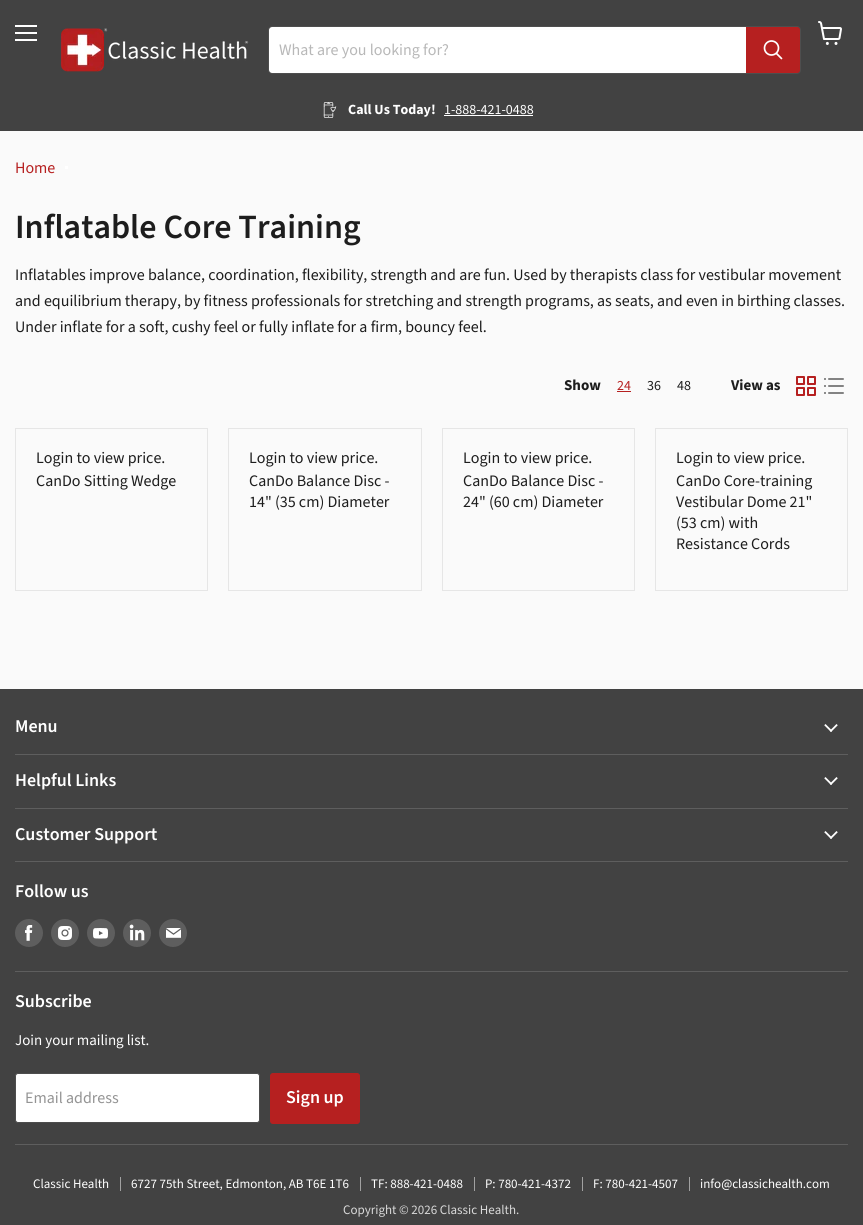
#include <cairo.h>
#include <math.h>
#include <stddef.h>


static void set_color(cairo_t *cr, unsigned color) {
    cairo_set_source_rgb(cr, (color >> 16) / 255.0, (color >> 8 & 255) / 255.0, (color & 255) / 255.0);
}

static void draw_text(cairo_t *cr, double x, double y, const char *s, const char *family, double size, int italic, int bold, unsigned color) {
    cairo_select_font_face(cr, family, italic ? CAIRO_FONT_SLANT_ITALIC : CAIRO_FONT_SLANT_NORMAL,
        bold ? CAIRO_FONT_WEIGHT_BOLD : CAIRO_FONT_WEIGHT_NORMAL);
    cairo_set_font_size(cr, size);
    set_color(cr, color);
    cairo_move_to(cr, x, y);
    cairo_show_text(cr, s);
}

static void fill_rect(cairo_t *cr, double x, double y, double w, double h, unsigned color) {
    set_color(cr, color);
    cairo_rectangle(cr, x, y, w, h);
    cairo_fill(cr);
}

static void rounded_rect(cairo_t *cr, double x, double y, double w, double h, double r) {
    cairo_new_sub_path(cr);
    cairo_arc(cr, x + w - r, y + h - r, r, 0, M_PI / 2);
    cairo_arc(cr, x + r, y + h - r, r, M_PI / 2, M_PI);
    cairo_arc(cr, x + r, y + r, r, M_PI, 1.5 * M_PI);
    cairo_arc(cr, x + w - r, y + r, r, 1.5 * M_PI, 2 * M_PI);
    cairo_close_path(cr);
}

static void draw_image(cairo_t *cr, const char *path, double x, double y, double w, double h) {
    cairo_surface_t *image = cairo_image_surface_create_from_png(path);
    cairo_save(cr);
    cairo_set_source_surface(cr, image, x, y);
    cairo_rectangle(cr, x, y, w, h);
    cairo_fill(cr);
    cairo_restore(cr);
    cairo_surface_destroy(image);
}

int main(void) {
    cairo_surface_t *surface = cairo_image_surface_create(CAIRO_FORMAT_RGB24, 863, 1225);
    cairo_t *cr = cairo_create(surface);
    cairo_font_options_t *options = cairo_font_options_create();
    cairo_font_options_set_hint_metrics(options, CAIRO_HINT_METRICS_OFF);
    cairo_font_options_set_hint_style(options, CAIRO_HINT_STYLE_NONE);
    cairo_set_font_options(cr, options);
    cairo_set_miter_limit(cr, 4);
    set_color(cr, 0xFAFAFA);
    cairo_paint(cr);
    fill_rect(cr, 0, 0, 863, 131, 0x424242);
    fill_rect(cr, 15, 25, 22, 2, 0xFFFFFF);
    fill_rect(cr, 15, 32, 22, 2, 0xFFFFFF);
    fill_rect(cr, 15, 39, 22, 2, 0xFFFFFF);
    draw_image(cr, "assets/img1.png", 818, 21, 24, 24);
    draw_image(cr, "assets/img2.png", 60, 28, 189, 44);
    rounded_rect(cr, 268.5, 26.5, 532, 47, 3.5);
    set_color(cr, 0x4E4E4E);
    cairo_set_line_width(cr, 1);
    cairo_stroke(cr);
    set_color(cr, 0xFFFFFF);
    cairo_new_path(cr);
    cairo_move_to(cr, 272, 27);
    cairo_line_to(cr, 746, 27);
    cairo_line_to(cr, 746, 73);
    cairo_line_to(cr, 272, 73);
    cairo_curve_to(cr, 270.5, 73, 269, 71.5, 269, 70);
    cairo_line_to(cr, 269, 30);
    cairo_curve_to(cr, 269, 28.5, 270.5, 27, 272, 27);
    cairo_close_path(cr);
    cairo_fill(cr);
    draw_text(cr, 279, 55, "What are you looking for?", "Source Sans Pro", 16, 0, 0, 0xB8B8B8);
    set_color(cr, 0xB62020);
    cairo_new_path(cr);
    cairo_move_to(cr, 746.5, 27.5);
    cairo_line_to(cr, 797, 27.5);
    cairo_curve_to(cr, 798.5, 27.5, 799.5, 28.5, 799.5, 30);
    cairo_line_to(cr, 799.5, 70);
    cairo_curve_to(cr, 799.5, 71.5, 798.5, 72.5, 797, 72.5);
    cairo_line_to(cr, 746.5, 72.5);
    cairo_close_path(cr);
    cairo_fill_preserve(cr);
    cairo_stroke(cr);
    cairo_new_path(cr);
    cairo_move_to(cr, 781.5, 58.5);
    cairo_line_to(cr, 776.5, 53.5);
    set_color(cr, 0xFFFFFF);
    cairo_set_line_width(cr, 1.7);
    cairo_set_line_cap(cr, CAIRO_LINE_CAP_ROUND);
    cairo_stroke(cr);
    cairo_arc(cr, 771.5, 48, 7, 0, 2 * M_PI);
    cairo_set_line_cap(cr, CAIRO_LINE_CAP_BUTT);
    cairo_stroke(cr);
    draw_image(cr, "assets/img3.png", 323, 102, 14, 16);
    draw_text(cr, 348, 114, "Call Us Today!", "Source Sans Pro", 14, 0, 1, 0xFFFFFF);
    draw_text(cr, 444, 114, "1-888-421-0488", "Source Sans Pro", 14, 0, 0, 0xFFFFFF);
    fill_rect(cr, 444, 115, 89, 1, 0xFFFFFF);
    draw_text(cr, 15, 173, "Home", "Source Sans Pro", 16, 0, 0, 0xB62020);
    fill_rect(cr, 65, 166, 3, 3, 0xFFFFFF);
    draw_text(cr, 15, 238, "Inflatable Core Training", "Source Sans Pro SemiBold", 34, 0, 0, 0x1D1D1D);
    draw_text(cr, 15, 280, "Inflatables improve balance, coordination, flexibility, strength and are fun. Used by therapists class for vestibular movement", "Source Sans Pro", 16, 0, 0, 0x1D1D1D);
    draw_text(cr, 15, 306, "and equilibrium therapy, by fitness professionals for stretching and strength programs, as seats, and even in birthing classes.", "Source Sans Pro", 16, 0, 0, 0x1D1D1D);
    draw_text(cr, 15, 332, "Under inflate for a soft, cushy feel or fully inflate for a firm, bouncy feel.", "Source Sans Pro", 16, 0, 0, 0x1D1D1D);
    draw_text(cr, 564, 390, "Show", "Source Sans Pro", 15, 0, 1, 0x1D1D1D);
    draw_text(cr, 617, 390, "24", "Source Sans Pro", 14, 0, 0, 0xB62020);
    fill_rect(cr, 617, 391, 14, 1, 0xB62020);
    draw_text(cr, 647, 390, "36", "Source Sans Pro", 14, 0, 0, 0x1D1D1D);
    draw_text(cr, 677, 390, "48", "Source Sans Pro", 14, 0, 0, 0x1D1D1D);
    draw_text(cr, 731, 390, "View as", "Source Sans Pro", 15, 0, 1, 0x1D1D1D);
    draw_image(cr, "assets/img4.png", 796, 376, 20, 20);
    draw_image(cr, "assets/img5.png", 824, 378, 20, 16);
    cairo_rectangle(cr, 15.5, 428.5, 192, 162);
    set_color(cr, 0xE6E6E6);
    cairo_set_line_width(cr, 1);
    cairo_stroke(cr);
    draw_text(cr, 36, 463, "Login to view price.", "Source Sans Pro", 16, 0, 0, 0x1D1D1D);
    draw_text(cr, 36, 486, "CanDo Sitting Wedge", "Source Sans Pro", 16, 0, 0, 0x1D1D1D);
    cairo_rectangle(cr, 228.5, 428.5, 193, 162);
    set_color(cr, 0xE6E6E6);
    cairo_stroke(cr);
    draw_text(cr, 249, 463, "Login to view price.", "Source Sans Pro", 16, 0, 0, 0x1D1D1D);
    draw_text(cr, 249, 486, "CanDo Balance Disc -", "Source Sans Pro", 16, 0, 0, 0x1D1D1D);
    draw_text(cr, 249, 507, "14\" (35 cm) Diameter", "Source Sans Pro", 16, 0, 0, 0x1D1D1D);
    cairo_rectangle(cr, 442.5, 428.5, 192, 162);
    set_color(cr, 0xE6E6E6);
    cairo_stroke(cr);
    draw_text(cr, 463, 463, "Login to view price.", "Source Sans Pro", 16, 0, 0, 0x1D1D1D);
    draw_text(cr, 463, 486, "CanDo Balance Disc -", "Source Sans Pro", 16, 0, 0, 0x1D1D1D);
    draw_text(cr, 463, 507, "24\" (60 cm) Diameter", "Source Sans Pro", 16, 0, 0, 0x1D1D1D);
    cairo_rectangle(cr, 655.5, 428.5, 192, 162);
    set_color(cr, 0xE6E6E6);
    cairo_stroke(cr);
    draw_text(cr, 676, 463, "Login to view price.", "Source Sans Pro", 16, 0, 0, 0x1D1D1D);
    draw_text(cr, 676, 486, "CanDo Core-training", "Source Sans Pro", 16, 0, 0, 0x1D1D1D);
    draw_text(cr, 676, 507, "Vestibular Dome 21\"", "Source Sans Pro", 16, 0, 0, 0x1D1D1D);
    draw_text(cr, 676, 528, "(53 cm) with", "Source Sans Pro", 16, 0, 0, 0x1D1D1D);
    draw_text(cr, 676, 549, "Resistance Cords", "Source Sans Pro", 16, 0, 0, 0x1D1D1D);
    fill_rect(cr, 0, 689, 863, 536, 0x424242);
    fill_rect(cr, 15, 754, 833, 1, 0x5E5E5E);
    draw_text(cr, 15, 732, "Menu", "Source Sans Pro SemiBold", 18, 0, 0, 0xFFFFFF);
    draw_image(cr, "assets/img6.png", 824, 724, 14, 8);
    fill_rect(cr, 15, 808, 833, 1, 0x5E5E5E);
    draw_text(cr, 15, 786, "Helpful Links", "Source Sans Pro SemiBold", 18, 0, 0, 0xFFFFFF);
    draw_image(cr, "assets/img6.png", 824, 777, 14, 8);
    fill_rect(cr, 15, 861, 833, 1, 0x5E5E5E);
    draw_text(cr, 15, 840, "Customer Support", "Source Sans Pro SemiBold", 18, 0, 0, 0xFFFFFF);
    draw_image(cr, "assets/img6.png", 824, 831, 14, 8);
    fill_rect(cr, 15, 971, 833, 1, 0x5E5E5E);
    draw_text(cr, 15, 897, "Follow us", "Source Sans Pro SemiBold", 18, 0, 0, 0xFFFFFF);
    set_color(cr, 0x5E5E5E);
    cairo_new_path(cr);
    cairo_arc(cr, 29, 933, 14, 0, 2 * M_PI);
    cairo_fill(cr);
    draw_image(cr, "assets/img7.png", 25, 925, 8, 16);
    cairo_arc(cr, 65, 933, 14, 0, 2 * M_PI);
    cairo_fill(cr);
    draw_image(cr, "assets/img8.png", 58, 926, 14, 14);
    cairo_arc(cr, 101, 933, 14, 0, 2 * M_PI);
    cairo_fill(cr);
    draw_image(cr, "assets/img9.png", 93, 928, 15, 11);
    cairo_arc(cr, 137, 933, 14, 0, 2 * M_PI);
    cairo_fill(cr);
    draw_image(cr, "assets/img10.png", 129, 924, 16, 17);
    cairo_arc(cr, 173, 933, 14, 0, 2 * M_PI);
    cairo_fill(cr);
    draw_image(cr, "assets/img11.png", 166, 928, 15, 10);
    fill_rect(cr, 15, 1144, 833, 1, 0x5E5E5E);
    draw_text(cr, 15, 1007, "Subscribe", "Source Sans Pro SemiBold", 18, 0, 0, 0xFFFFFF);
    draw_text(cr, 15, 1045, "Join your mailing list.", "Source Sans Pro", 15, 0, 0, 0xFFFFFF);
    rounded_rect(cr, 15.5, 1073.5, 244, 49, 2.5);
    cairo_fill_preserve(cr);
    set_color(cr, 0x4D4D4D);
    cairo_stroke(cr);
    draw_text(cr, 25, 1103, "Email address", "Source Sans Pro", 16, 0, 0, 0x949494);
    set_color(cr, 0xB62020);
    rounded_rect(cr, 270.5, 1073.5, 89, 50, 2.5);
    cairo_fill_preserve(cr);
    cairo_stroke(cr);
    draw_text(cr, 286, 1103, "Sign up", "Source Sans Pro SemiBold", 18, 0, 0, 0xFFFFFF);
    fill_rect(cr, 120, 1177, 1, 14, 0xA1A1A1);
    draw_text(cr, 33, 1188, "Classic Health", "Source Sans Pro", 13, 0, 0, 0xFFFFFF);
    fill_rect(cr, 360, 1177, 1, 14, 0xA1A1A1);
    draw_text(cr, 131, 1188, "6727 75th Street, Edmonton, AB T6E 1T6", "Source Sans Pro", 13, 0, 0, 0xFFFFFF);
    fill_rect(cr, 474, 1177, 1, 14, 0xA1A1A1);
    draw_text(cr, 371, 1188, "TF: 888-421-0488", "Source Sans Pro", 13, 0, 0, 0xFFFFFF);
    fill_rect(cr, 582, 1177, 1, 14, 0xA1A1A1);
    draw_text(cr, 485, 1188, "P: 780-421-4372", "Source Sans Pro", 13, 0, 0, 0xFFFFFF);
    fill_rect(cr, 689, 1177, 1, 14, 0xA1A1A1);
    draw_text(cr, 593, 1188, "F: 780-421-4507", "Source Sans Pro", 13, 0, 0, 0xFFFFFF);
    draw_text(cr, 700, 1188, "info@classichealth.com", "Source Sans Pro", 13, 0, 0, 0xFFFFFF);
    draw_text(cr, 343, 1214, "Copyright © 2026 Classic Health.", "Source Sans Pro", 13, 0, 0, 0xD9D9D9);
    cairo_surface_write_to_png(surface, "output.png");
    cairo_font_options_destroy(options);
    cairo_destroy(cr);
    cairo_surface_destroy(surface);
    return 0;
}
